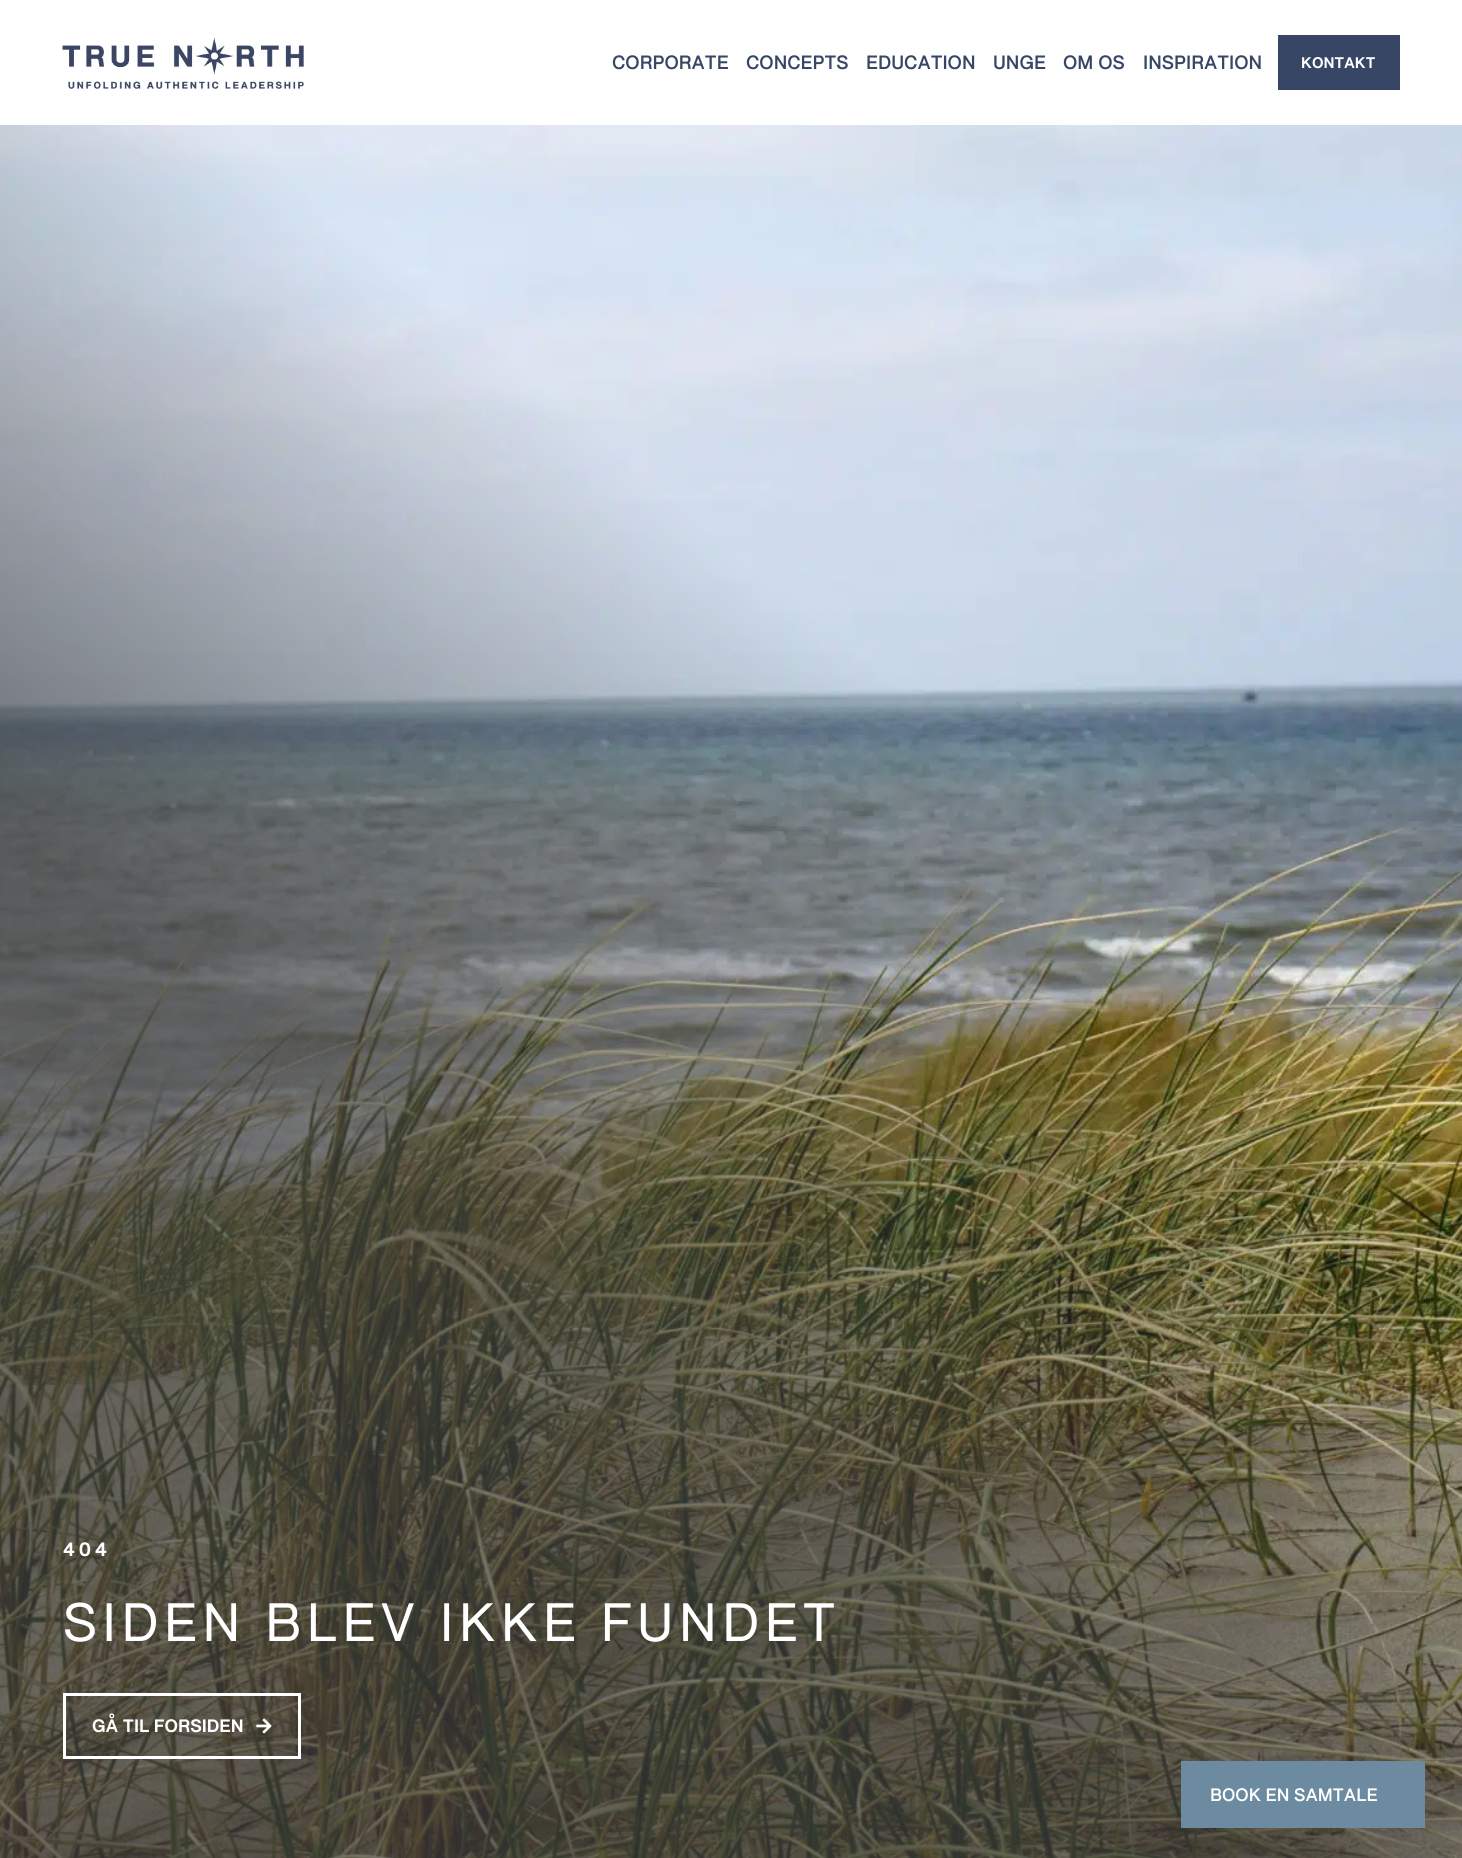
#include <cairo.h>
#include <math.h>
#include <stddef.h>


static void set_color(cairo_t *cr, unsigned color) {
    cairo_set_source_rgb(cr, (color >> 16) / 255.0, (color >> 8 & 255) / 255.0, (color & 255) / 255.0);
}

static void draw_text(cairo_t *cr, double x, double y, const char *s, const char *family, double size, int italic, int bold, unsigned color) {
    cairo_select_font_face(cr, family, italic ? CAIRO_FONT_SLANT_ITALIC : CAIRO_FONT_SLANT_NORMAL,
        bold ? CAIRO_FONT_WEIGHT_BOLD : CAIRO_FONT_WEIGHT_NORMAL);
    cairo_set_font_size(cr, size);
    set_color(cr, color);
    cairo_move_to(cr, x, y);
    cairo_show_text(cr, s);
}

static void draw_spaced(cairo_t *cr, double x, double y, const char *s, double letter, double word) {
    cairo_move_to(cr, x, y);
    while (*s) {
        char ch[5] = {0};
        int n = 0;
        do ch[n++] = *s++; while ((*s & 0xC0) == 0x80);
        cairo_show_text(cr, ch);
        cairo_rel_move_to(cr, letter + word * (*ch == ' '), 0);
    }
}

static void fill_rect(cairo_t *cr, double x, double y, double w, double h, unsigned color) {
    set_color(cr, color);
    cairo_rectangle(cr, x, y, w, h);
    cairo_fill(cr);
}

static void rounded_rect(cairo_t *cr, double x, double y, double w, double h, double r) {
    cairo_new_sub_path(cr);
    cairo_arc(cr, x + w - r, y + h - r, r, 0, M_PI / 2);
    cairo_arc(cr, x + r, y + h - r, r, M_PI / 2, M_PI);
    cairo_arc(cr, x + r, y + r, r, M_PI, 1.5 * M_PI);
    cairo_arc(cr, x + w - r, y + r, r, 1.5 * M_PI, 2 * M_PI);
    cairo_close_path(cr);
}

static void draw_shadow(cairo_t *cr, double x, double y, double w, double h, double r, double blur, double alpha) {
    cairo_push_group_with_content(cr, CAIRO_CONTENT_ALPHA);
    cairo_set_operator(cr, CAIRO_OPERATOR_SOURCE);
    for (int i = 15; i >= -15 && fmin(w, h) + blur * i / 3 > 0; i -= 2) {
        double e = blur * i / 6;
        cairo_set_source_rgba(cr, 0, 0, 0, alpha * erfc((i - 1) / 8.5) / 2);
        rounded_rect(cr, x - e, y - e, w + 2 * e, h + 2 * e, fmax(0, fmin(r + e + blur * .6, fmin(w, h) / 2 + e)));
        cairo_fill(cr);
    }
    cairo_pattern_t *soft = cairo_pop_group(cr);
    cairo_mask(cr, soft);
    cairo_pattern_destroy(soft);
}

static void draw_image(cairo_t *cr, const char *path, double x, double y, double w, double h) {
    cairo_surface_t *image = cairo_image_surface_create_from_png(path);
    cairo_save(cr);
    cairo_set_source_surface(cr, image, x, y);
    cairo_rectangle(cr, x, y, w, h);
    cairo_fill(cr);
    cairo_restore(cr);
    cairo_surface_destroy(image);
}

int main(void) {
    cairo_surface_t *surface = cairo_image_surface_create(CAIRO_FORMAT_RGB24, 1462, 1858);
    cairo_t *cr = cairo_create(surface);
    cairo_font_options_t *options = cairo_font_options_create();
    cairo_font_options_set_hint_metrics(options, CAIRO_HINT_METRICS_OFF);
    cairo_font_options_set_hint_style(options, CAIRO_HINT_STYLE_NONE);
    cairo_set_font_options(cr, options);
    cairo_set_miter_limit(cr, 4);
    set_color(cr, 0xFFFFFF);
    cairo_paint(cr);
    draw_image(cr, "assets/img1.png", 0, 125, 1462, 1733);
    cairo_select_font_face(cr, "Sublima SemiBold", CAIRO_FONT_SLANT_NORMAL, CAIRO_FONT_WEIGHT_NORMAL);
    cairo_set_font_size(cr, 18.75);
    set_color(cr, 0xFFFFFF);
    draw_spaced(cr, 63, 1556, "404", 4, 0);
    cairo_select_font_face(cr, "Sublima", CAIRO_FONT_SLANT_NORMAL, CAIRO_FONT_WEIGHT_NORMAL);
    cairo_set_font_size(cr, 52.5);
    draw_spaced(cr, 63, 1641, "SIDEN BLEV IKKE FUNDET", 5.25, 0);
    cairo_rectangle(cr, 64.5, 1694.5, 235, 63);
    cairo_set_line_width(cr, 3);
    cairo_stroke(cr);
    draw_text(cr, 92, 1732, "GÅ TIL FORSIDEN", "Sublima SemiBold", 17.5, 0, 0, 0xFFFFFF);
    draw_image(cr, "assets/img2.png", 256, 1718, 16, 16);
    draw_image(cr, "assets/img3.png", 62, 37, 242, 52);
    draw_text(cr, 612, 69, "CORPORATE", "Sublima Medium", 18.75, 0, 0, 0x364664);
    draw_text(cr, 746, 69, "CONCEPTS", "Sublima Medium", 18.75, 0, 0, 0x364664);
    draw_text(cr, 866, 69, "EDUCATION", "Sublima Medium", 18.75, 0, 0, 0x364664);
    draw_text(cr, 993, 69, "UNGE", "Sublima Medium", 18.75, 0, 0, 0x364664);
    draw_text(cr, 1063, 69, "OM OS", "Sublima Medium", 18.75, 0, 0, 0x364664);
    draw_text(cr, 1143, 69, "INSPIRATION", "Sublima Medium", 18.75, 0, 0, 0x364664);
    fill_rect(cr, 1278, 35, 122, 55, 0x364664);
    draw_text(cr, 1301, 68, "KONTAKT", "Sublima SemiBold", 15, 0, 0, 0xFFFFFF);
    set_color(cr, 0x000000);
    draw_shadow(cr, 1181, 1761, 244, 67, 0, 9.5, 0.1);
    fill_rect(cr, 1181, 1761, 244, 67, 0x6C8BA1);
    draw_text(cr, 1210, 1801, "BOOK EN SAMTALE", "Sublima Medium", 17.5, 0, 0, 0xFFFFFF);
    cairo_surface_write_to_png(surface, "output.png");
    cairo_font_options_destroy(options);
    cairo_destroy(cr);
    cairo_surface_destroy(surface);
    return 0;
}
